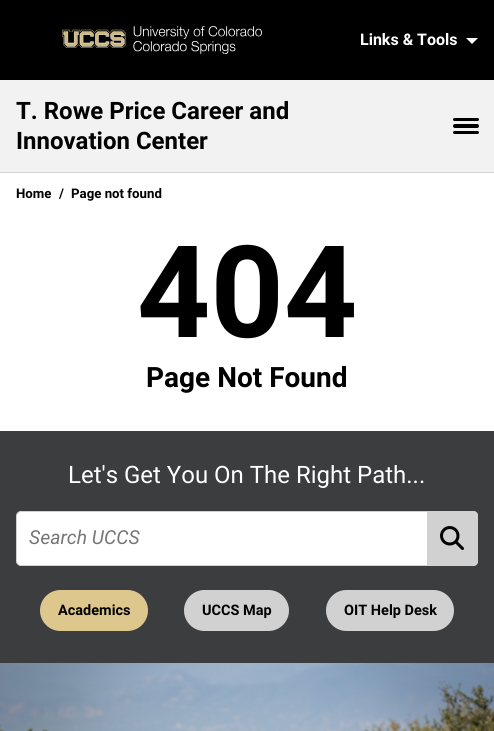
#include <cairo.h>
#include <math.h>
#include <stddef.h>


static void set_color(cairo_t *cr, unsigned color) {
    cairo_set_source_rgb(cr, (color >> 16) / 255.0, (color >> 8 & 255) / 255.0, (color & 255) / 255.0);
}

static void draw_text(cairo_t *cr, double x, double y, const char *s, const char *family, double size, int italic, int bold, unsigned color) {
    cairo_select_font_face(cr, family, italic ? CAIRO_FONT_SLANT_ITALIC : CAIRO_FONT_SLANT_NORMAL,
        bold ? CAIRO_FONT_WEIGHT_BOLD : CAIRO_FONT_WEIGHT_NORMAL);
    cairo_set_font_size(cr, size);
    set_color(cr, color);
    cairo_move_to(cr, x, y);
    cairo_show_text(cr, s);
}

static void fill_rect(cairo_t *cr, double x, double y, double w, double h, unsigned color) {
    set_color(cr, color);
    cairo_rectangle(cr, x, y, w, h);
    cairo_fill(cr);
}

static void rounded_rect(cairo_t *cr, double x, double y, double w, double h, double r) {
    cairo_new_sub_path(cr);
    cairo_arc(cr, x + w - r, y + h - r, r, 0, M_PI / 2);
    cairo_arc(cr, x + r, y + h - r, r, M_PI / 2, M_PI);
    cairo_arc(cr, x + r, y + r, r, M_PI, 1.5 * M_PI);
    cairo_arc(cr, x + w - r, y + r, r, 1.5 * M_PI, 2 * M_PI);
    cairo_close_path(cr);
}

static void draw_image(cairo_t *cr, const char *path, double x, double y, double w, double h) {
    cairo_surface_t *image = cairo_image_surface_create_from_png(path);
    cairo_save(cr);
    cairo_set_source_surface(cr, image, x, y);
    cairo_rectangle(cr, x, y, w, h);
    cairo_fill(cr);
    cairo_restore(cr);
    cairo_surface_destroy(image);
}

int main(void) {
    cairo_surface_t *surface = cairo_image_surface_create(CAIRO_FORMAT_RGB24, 494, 731);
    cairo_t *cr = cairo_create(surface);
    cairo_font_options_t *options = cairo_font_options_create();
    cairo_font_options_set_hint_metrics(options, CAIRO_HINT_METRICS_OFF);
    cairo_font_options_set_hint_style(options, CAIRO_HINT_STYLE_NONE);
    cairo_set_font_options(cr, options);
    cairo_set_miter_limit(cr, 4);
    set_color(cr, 0xFFFFFF);
    cairo_paint(cr);
    fill_rect(cr, 0, 0, 494, 80, 0x000000);
    draw_image(cr, "assets/img1.png", 62, 26, 200, 28);
    draw_text(cr, 360, 45, "Links & Tools", "Roboto", 16, 0, 1, 0xFFFFFF);
    cairo_new_path(cr);
    cairo_move_to(cr, 466, 38);
    cairo_line_to(cr, 478, 38);
    cairo_line_to(cr, 472, 44);
    cairo_close_path(cr);
    cairo_fill(cr);
    fill_rect(cr, 0, 80, 494, 92, 0xF2F2F2);
    fill_rect(cr, 0, 172, 494, 1, 0xD1D1D1);
    draw_text(cr, 16, 119, "T. Rowe Price Career and", "Roboto", 24, 0, 1, 0x000000);
    draw_text(cr, 16, 149, "Innovation Center", "Roboto", 24, 0, 1, 0x000000);
    rounded_rect(cr, 453, 118, 26, 3, 1.5);
    cairo_fill(cr);
    rounded_rect(cr, 453, 124, 26, 4, 2);
    cairo_fill(cr);
    rounded_rect(cr, 453, 131, 26, 3, 1.5);
    cairo_fill(cr);
    draw_text(cr, 16, 198, "Home", "Roboto", 13.25, 0, 1, 0x000000);
    draw_text(cr, 59, 198, "/", "Roboto", 13.25, 0, 1, 0x000000);
    draw_text(cr, 71, 198, "Page not found", "Roboto", 13.25, 0, 1, 0x000000);
    draw_text(cr, 137, 337, "404", "Roboto", 128, 0, 1, 0x000000);
    draw_text(cr, 146, 387, "Page Not Found", "Roboto", 28, 0, 1, 0x000000);
    fill_rect(cr, 0, 431, 494, 232, 0x3B3D3F);
    draw_text(cr, 68, 483, "Let's Get You On The Right Path...", "Roboto", 24, 0, 0, 0xFFFFFF);
    cairo_new_path(cr);
    cairo_move_to(cr, 21, 511.5);
    cairo_line_to(cr, 427.5, 511.5);
    cairo_line_to(cr, 427.5, 565.5);
    cairo_line_to(cr, 21, 565.5);
    cairo_curve_to(cr, 18.5, 565.5, 16.5, 563.5, 16.5, 561);
    cairo_line_to(cr, 16.5, 516);
    cairo_curve_to(cr, 16.5, 513.5, 18.5, 511.5, 21, 511.5);
    cairo_close_path(cr);
    cairo_fill_preserve(cr);
    set_color(cr, 0xD1D1D1);
    cairo_set_line_width(cr, 1);
    cairo_stroke(cr);
    draw_text(cr, 29, 544, "Search UCCS", "Roboto", 19.25, 1, 0, 0x757575);
    set_color(cr, 0xD1D1D1);
    cairo_new_path(cr);
    cairo_move_to(cr, 428, 511);
    cairo_line_to(cr, 473, 511);
    cairo_curve_to(cr, 476, 511, 478, 513, 478, 516);
    cairo_line_to(cr, 478, 561);
    cairo_curve_to(cr, 478, 564, 476, 566, 473, 566);
    cairo_line_to(cr, 428, 566);
    cairo_close_path(cr);
    cairo_fill(cr);
    cairo_set_fill_rule(cr, CAIRO_FILL_RULE_EVEN_ODD);
    cairo_new_path(cr);
    cairo_move_to(cr, 428, 511);
    cairo_line_to(cr, 473, 511);
    cairo_curve_to(cr, 476, 511, 478, 513, 478, 516);
    cairo_line_to(cr, 478, 561);
    cairo_curve_to(cr, 478, 564, 476, 566, 473, 566);
    cairo_line_to(cr, 428, 566);
    cairo_close_path(cr);
    cairo_move_to(cr, 428, 513);
    cairo_line_to(cr, 473, 513);
    cairo_curve_to(cr, 475, 513, 476, 514, 476, 516);
    cairo_line_to(cr, 476, 561);
    cairo_curve_to(cr, 476, 563, 475, 564, 473, 564);
    cairo_line_to(cr, 428, 564);
    cairo_close_path(cr);
    cairo_fill(cr);
    draw_image(cr, "assets/img2.png", 440, 526, 24, 24);
    set_color(cr, 0xDEC78C);
    rounded_rect(cr, 41, 591, 106, 39, 19.5);
    cairo_fill_preserve(cr);
    cairo_set_line_width(cr, 2);
    cairo_stroke(cr);
    draw_text(cr, 58, 615, "Academics", "Roboto", 14.5, 0, 1, 0x000000);
    set_color(cr, 0xD1D1D1);
    rounded_rect(cr, 185, 591, 103, 39, 19.5);
    cairo_fill_preserve(cr);
    cairo_stroke(cr);
    draw_text(cr, 202, 615, "UCCS Map", "Roboto", 14.5, 0, 1, 0x000000);
    set_color(cr, 0xD1D1D1);
    rounded_rect(cr, 327, 591, 126, 39, 19.5);
    cairo_fill_preserve(cr);
    cairo_stroke(cr);
    draw_text(cr, 344, 615, "OIT Help Desk", "Roboto", 14.5, 0, 1, 0x000000);
    draw_image(cr, "assets/img3.png", 0, 663, 494, 68);
    cairo_surface_write_to_png(surface, "output.png");
    cairo_font_options_destroy(options);
    cairo_destroy(cr);
    cairo_surface_destroy(surface);
    return 0;
}
